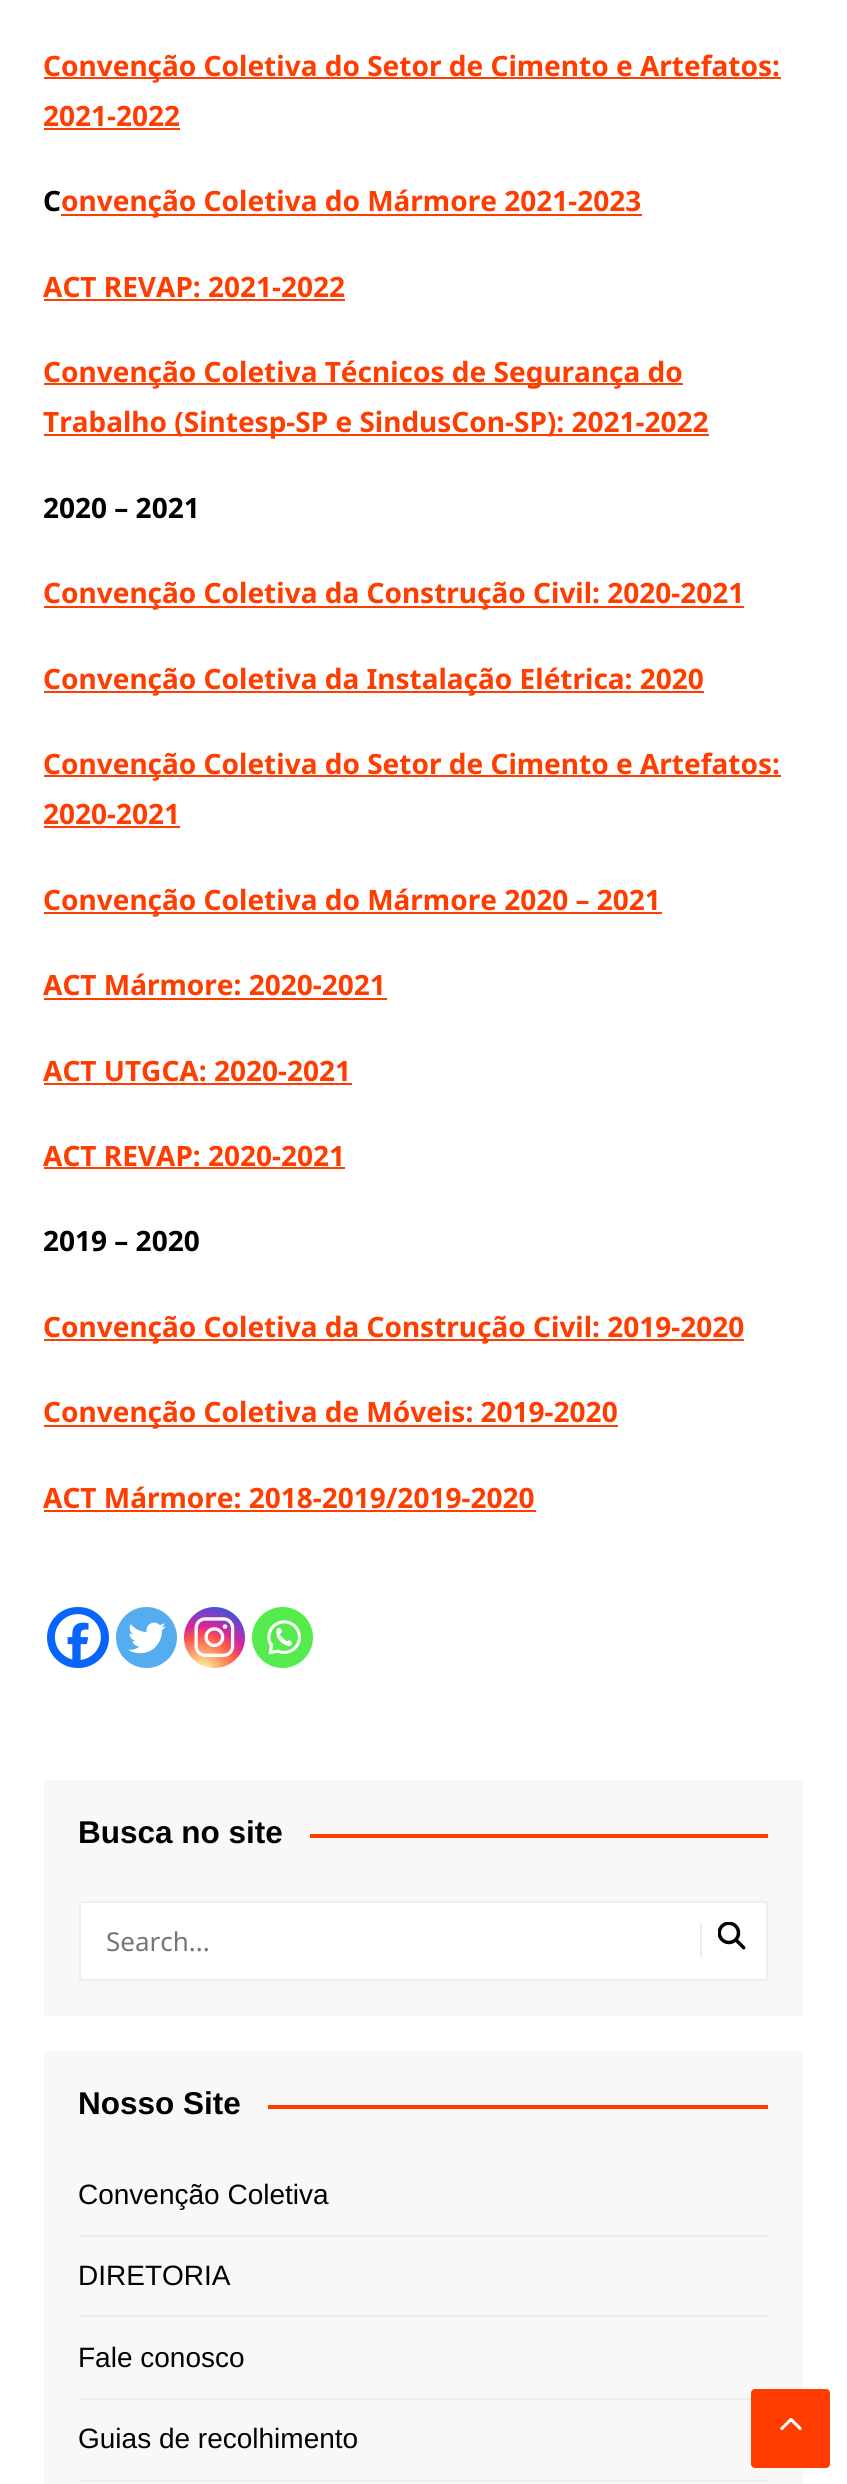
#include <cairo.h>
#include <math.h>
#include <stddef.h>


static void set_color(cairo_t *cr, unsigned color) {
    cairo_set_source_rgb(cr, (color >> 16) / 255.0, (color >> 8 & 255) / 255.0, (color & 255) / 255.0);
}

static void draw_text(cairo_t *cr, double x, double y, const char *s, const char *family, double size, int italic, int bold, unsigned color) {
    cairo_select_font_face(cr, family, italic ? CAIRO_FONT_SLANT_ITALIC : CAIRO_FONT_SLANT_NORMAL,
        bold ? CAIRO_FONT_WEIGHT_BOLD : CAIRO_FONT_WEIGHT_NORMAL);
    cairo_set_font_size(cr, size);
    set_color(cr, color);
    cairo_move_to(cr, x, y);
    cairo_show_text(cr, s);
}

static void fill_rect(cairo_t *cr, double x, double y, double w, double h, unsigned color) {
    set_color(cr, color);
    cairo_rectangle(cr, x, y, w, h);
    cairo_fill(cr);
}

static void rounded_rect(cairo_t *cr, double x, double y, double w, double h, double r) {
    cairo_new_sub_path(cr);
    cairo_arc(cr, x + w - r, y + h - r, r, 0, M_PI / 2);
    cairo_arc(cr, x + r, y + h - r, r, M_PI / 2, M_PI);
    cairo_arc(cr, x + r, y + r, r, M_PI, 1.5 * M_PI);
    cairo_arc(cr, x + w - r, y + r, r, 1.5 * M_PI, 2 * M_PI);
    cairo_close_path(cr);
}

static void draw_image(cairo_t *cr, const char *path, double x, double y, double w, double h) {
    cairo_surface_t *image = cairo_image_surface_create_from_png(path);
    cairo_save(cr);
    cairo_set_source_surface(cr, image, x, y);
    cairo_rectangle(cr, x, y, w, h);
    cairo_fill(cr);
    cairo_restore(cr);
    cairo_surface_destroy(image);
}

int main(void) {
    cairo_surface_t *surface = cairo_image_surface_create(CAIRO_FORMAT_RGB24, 847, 2484);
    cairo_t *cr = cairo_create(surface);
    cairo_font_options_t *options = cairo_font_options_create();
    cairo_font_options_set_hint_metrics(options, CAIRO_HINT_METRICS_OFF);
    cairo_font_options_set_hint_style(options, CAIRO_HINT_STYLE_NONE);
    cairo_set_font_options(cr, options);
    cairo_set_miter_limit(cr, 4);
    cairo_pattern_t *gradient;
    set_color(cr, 0xFFFFFF);
    cairo_paint(cr);
    fill_rect(cr, 44, 77, 737, 2, 0xFF3D00);
    draw_text(cr, 43, 76, "Convenção Coletiva do Setor de Cimento e Artefatos:", "Noto Sans", 28, 0, 1, 0xFF3D00);
    draw_text(cr, 43, 126, "2021-2022", "Noto Sans", 28, 0, 1, 0xFF3D00);
    fill_rect(cr, 44, 128, 136, 2, 0xFF3D00);
    draw_text(cr, 43, 211, "C", "Noto Sans", 28, 0, 1, 0x010101);
    fill_rect(cr, 61, 214, 581, 2, 0xFF3D00);
    draw_text(cr, 61, 211, "onvenção Coletiva do Mármore 2021-2023", "Noto Sans", 28, 0, 1, 0xFF3D00);
    draw_text(cr, 43, 297, "ACT REVAP: 2021-2022", "Noto Sans", 28, 0, 1, 0xFF3D00);
    fill_rect(cr, 44, 299, 301, 2, 0xFF3D00);
    fill_rect(cr, 44, 383, 639, 2, 0xFF3D00);
    draw_text(cr, 43, 382, "Convenção Coletiva Técnicos de Segurança do", "Noto Sans", 28, 0, 1, 0xFF3D00);
    fill_rect(cr, 44, 434, 665, 2, 0xFF3D00);
    draw_text(cr, 43, 432, "Trabalho (Sintesp-SP e SindusCon-SP): 2021-2022", "Noto Sans", 28, 0, 1, 0xFF3D00);
    draw_text(cr, 43, 518, "2020 – 2021", "Noto Sans", 28, 0, 1, 0x010101);
    fill_rect(cr, 44, 606, 700, 2, 0xFF3D00);
    draw_text(cr, 43, 603, "Convenção Coletiva da Construção Civil: 2020-2021", "Noto Sans", 28, 0, 1, 0xFF3D00);
    fill_rect(cr, 44, 691, 660, 2, 0xFF3D00);
    draw_text(cr, 43, 689, "Convenção Coletiva da Instalação Elétrica: 2020", "Noto Sans", 28, 0, 1, 0xFF3D00);
    fill_rect(cr, 44, 775, 737, 2, 0xFF3D00);
    draw_text(cr, 43, 774, "Convenção Coletiva do Setor de Cimento e Artefatos:", "Noto Sans", 28, 0, 1, 0xFF3D00);
    draw_text(cr, 43, 824, "2020-2021", "Noto Sans", 28, 0, 1, 0xFF3D00);
    fill_rect(cr, 44, 826, 136, 2, 0xFF3D00);
    fill_rect(cr, 44, 912, 618, 2, 0xFF3D00);
    draw_text(cr, 43, 910, "Convenção Coletiva do Mármore 2020 – 2021", "Noto Sans", 28, 0, 1, 0xFF3D00);
    draw_text(cr, 43, 995, "ACT Mármore: 2020-2021", "Noto Sans", 28, 0, 1, 0xFF3D00);
    fill_rect(cr, 44, 998, 343, 2, 0xFF3D00);
    draw_text(cr, 43, 1081, "ACT UTGCA: 2020-2021", "Noto Sans", 28, 0, 1, 0xFF3D00);
    fill_rect(cr, 44, 1083, 308, 2, 0xFF3D00);
    draw_text(cr, 43, 1166, "ACT REVAP: 2020-2021", "Noto Sans", 28, 0, 1, 0xFF3D00);
    fill_rect(cr, 44, 1167, 301, 2, 0xFF3D00);
    draw_text(cr, 43, 1251, "2019 – 2020", "Noto Sans", 28, 0, 1, 0x010101);
    fill_rect(cr, 44, 1339, 700, 2, 0xFF3D00);
    draw_text(cr, 43, 1337, "Convenção Coletiva da Construção Civil: 2019-2020", "Noto Sans", 28, 0, 1, 0xFF3D00);
    fill_rect(cr, 44, 1425, 574, 2, 0xFF3D00);
    draw_text(cr, 43, 1422, "Convenção Coletiva de Móveis: 2019-2020", "Noto Sans", 28, 0, 1, 0xFF3D00);
    draw_text(cr, 43, 1508, "ACT Mármore: 2018-2019/2019-2020", "Noto Sans", 28, 0, 1, 0xFF3D00);
    fill_rect(cr, 44, 1510, 492, 2, 0xFF3D00);
    set_color(cr, 0x0765FE);
    rounded_rect(cr, 47, 1607, 62, 61, 30.5);
    cairo_fill(cr);
    draw_image(cr, "assets/img1.png", 54, 1614, 47, 46);
    set_color(cr, 0x55ACEE);
    cairo_arc(cr, 146.5, 1637.5, 30.5, 0, 2 * M_PI);
    cairo_fill(cr);
    draw_image(cr, "assets/img2.png", 128, 1622, 38, 32);
    gradient = cairo_pattern_create_radial(202, 1672, 0, 202, 1672, 78);
    cairo_pattern_add_color_stop_rgba(gradient, 0, 0.992, 0.957, 0.592, 1);
    cairo_pattern_add_color_stop_rgba(gradient, 0.05, 0.992, 0.957, 0.592, 1);
    cairo_pattern_add_color_stop_rgba(gradient, 0.45, 0.992, 0.349, 0.286, 1);
    cairo_pattern_add_color_stop_rgba(gradient, 0.6, 0.839, 0.141, 0.624, 1);
    cairo_pattern_add_color_stop_rgba(gradient, 0.9, 0.157, 0.353, 0.922, 1);
    cairo_set_source(cr, gradient);
    cairo_pattern_destroy(gradient);
    cairo_arc(cr, 214.5, 1637.5, 30.5, 0, 2 * M_PI);
    cairo_fill(cr);
    draw_image(cr, "assets/img3.png", 194, 1617, 41, 40);
    set_color(cr, 0x55EB4C);
    cairo_arc(cr, 282.5, 1637.5, 30.5, 0, 2 * M_PI);
    cairo_fill(cr);
    draw_image(cr, "assets/img4.png", 267, 1620, 34, 35);
    fill_rect(cr, 44, 1780, 759, 236, 0xF8F8F8);
    draw_text(cr, 78, 1843, "Busca no site", "Liberation Sans", 31.5, 0, 1, 0x010101);
    fill_rect(cr, 310, 1834, 458, 4, 0xFF3D00);
    set_color(cr, 0xFFFFFF);
    cairo_rectangle(cr, 80, 1902, 687, 78);
    cairo_fill_preserve(cr);
    set_color(cr, 0xEEEEEE);
    cairo_stroke(cr);
    draw_text(cr, 106, 1951, "Search...", "Noto Sans", 26, 0, 0, 0x757575);
    fill_rect(cr, 700, 1923, 2, 35, 0xEEEEEE);
    draw_image(cr, "assets/img5.png", 718, 1922, 28, 28);
    fill_rect(cr, 44, 2051, 759, 433, 0xF8F8F8);
    draw_text(cr, 78, 2114, "Nosso Site", "Liberation Sans", 31.5, 0, 1, 0x010101);
    fill_rect(cr, 268, 2105, 500, 4, 0xFF3D00);
    fill_rect(cr, 79, 2235, 689, 2, 0xEEEEEE);
    draw_text(cr, 78, 2204, "Convenção Coletiva", "Liberation Sans", 28, 0, 0, 0x010101);
    fill_rect(cr, 79, 2315, 689, 2, 0xEEEEEE);
    draw_text(cr, 78, 2285, "DIRETORIA", "Liberation Sans", 28, 0, 0, 0x010101);
    fill_rect(cr, 79, 2398, 672, 2, 0xEEEEEE);
    draw_text(cr, 78, 2367, "Fale conosco", "Liberation Sans", 28, 0, 0, 0x010101);
    fill_rect(cr, 79, 2480, 689, 2, 0xEEEEEE);
    draw_text(cr, 78, 2448, "Guias de recolhimento", "Liberation Sans", 28, 0, 0, 0x010101);
    set_color(cr, 0xFF3D00);
    rounded_rect(cr, 751, 2389, 79, 79, 4);
    cairo_fill(cr);
    draw_image(cr, "assets/img6.png", 780, 2417, 22, 14);
    cairo_surface_write_to_png(surface, "output.png");
    cairo_font_options_destroy(options);
    cairo_destroy(cr);
    cairo_surface_destroy(surface);
    return 0;
}
